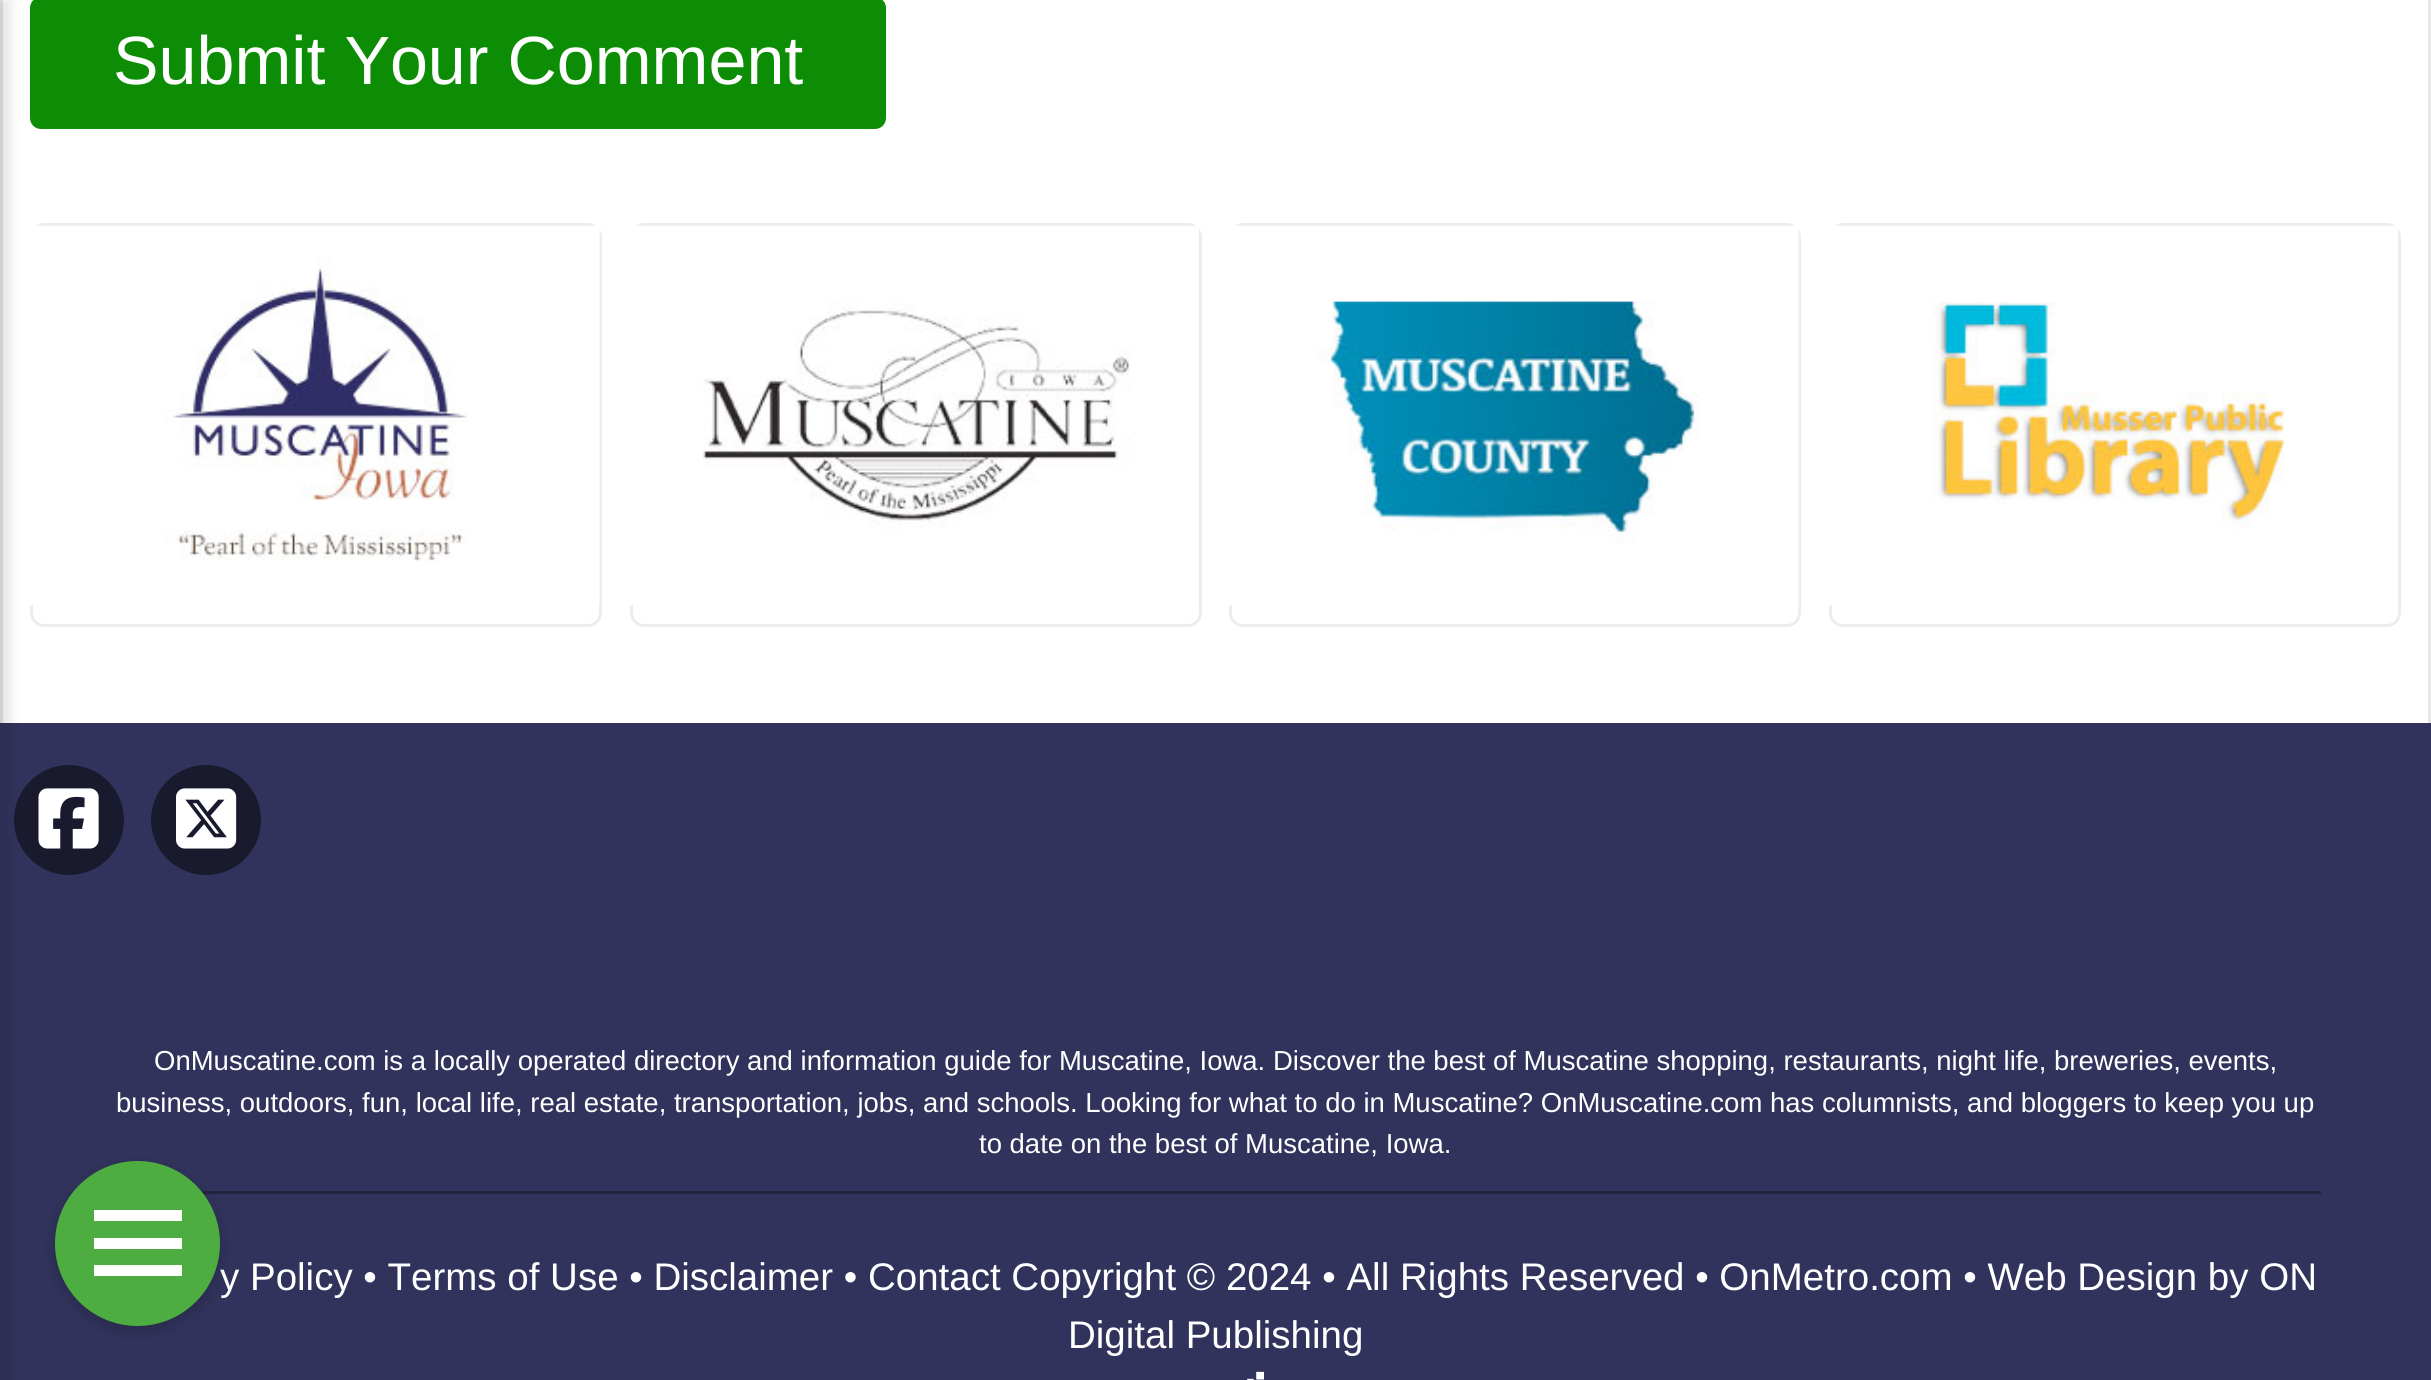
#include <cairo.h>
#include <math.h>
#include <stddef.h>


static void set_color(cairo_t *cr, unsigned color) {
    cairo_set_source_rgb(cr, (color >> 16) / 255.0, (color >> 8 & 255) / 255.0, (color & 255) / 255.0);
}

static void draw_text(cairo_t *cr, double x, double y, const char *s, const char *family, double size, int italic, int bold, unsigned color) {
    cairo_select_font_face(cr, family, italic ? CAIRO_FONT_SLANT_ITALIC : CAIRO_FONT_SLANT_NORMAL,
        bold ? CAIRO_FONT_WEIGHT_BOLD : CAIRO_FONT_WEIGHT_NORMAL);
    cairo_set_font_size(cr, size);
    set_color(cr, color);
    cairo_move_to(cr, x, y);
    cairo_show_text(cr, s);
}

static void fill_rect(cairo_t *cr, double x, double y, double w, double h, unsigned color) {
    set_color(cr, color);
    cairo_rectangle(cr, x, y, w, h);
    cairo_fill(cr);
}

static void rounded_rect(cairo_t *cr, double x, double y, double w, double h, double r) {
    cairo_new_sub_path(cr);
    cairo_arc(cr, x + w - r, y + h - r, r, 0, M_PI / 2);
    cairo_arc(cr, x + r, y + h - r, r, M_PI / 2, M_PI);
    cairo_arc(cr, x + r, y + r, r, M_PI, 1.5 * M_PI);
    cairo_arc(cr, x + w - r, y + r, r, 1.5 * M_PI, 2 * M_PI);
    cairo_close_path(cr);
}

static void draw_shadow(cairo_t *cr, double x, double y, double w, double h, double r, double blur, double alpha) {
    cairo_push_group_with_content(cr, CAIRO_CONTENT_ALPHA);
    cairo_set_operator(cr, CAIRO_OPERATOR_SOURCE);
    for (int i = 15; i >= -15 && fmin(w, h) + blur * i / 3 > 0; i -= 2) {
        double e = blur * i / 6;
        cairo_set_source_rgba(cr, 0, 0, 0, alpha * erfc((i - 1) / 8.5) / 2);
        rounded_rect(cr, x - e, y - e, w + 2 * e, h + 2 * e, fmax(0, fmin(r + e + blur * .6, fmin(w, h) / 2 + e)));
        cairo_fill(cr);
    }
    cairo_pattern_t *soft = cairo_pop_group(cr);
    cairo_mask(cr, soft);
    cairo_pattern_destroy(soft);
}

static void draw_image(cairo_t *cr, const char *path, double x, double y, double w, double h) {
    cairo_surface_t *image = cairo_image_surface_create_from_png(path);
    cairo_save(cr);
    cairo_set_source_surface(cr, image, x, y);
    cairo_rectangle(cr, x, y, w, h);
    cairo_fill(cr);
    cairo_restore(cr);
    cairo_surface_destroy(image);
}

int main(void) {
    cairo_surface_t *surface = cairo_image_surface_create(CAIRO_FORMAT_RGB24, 2431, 1380);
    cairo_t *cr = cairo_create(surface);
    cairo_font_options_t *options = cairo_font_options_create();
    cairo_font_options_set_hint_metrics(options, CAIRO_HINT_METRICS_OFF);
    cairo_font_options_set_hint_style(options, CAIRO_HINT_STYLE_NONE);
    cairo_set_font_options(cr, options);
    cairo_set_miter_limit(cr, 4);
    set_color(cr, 0xFFFFFF);
    cairo_paint(cr);
    fill_rect(cr, 0, 0, 3, 723, 0xE6E6E6);
    fill_rect(cr, 0, 723, 2431, 657, 0x32335C);
    set_color(cr, 0x191A2E);
    cairo_arc(cr, 69, 820, 55, 0, 2 * M_PI);
    cairo_fill(cr);
    set_color(cr, 0x000000);
    draw_shadow(cr, -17, 0, 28, 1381, 0, 5.5, 0.1);
    fill_rect(cr, 2428, 0, 3, 723, 0xE6E6E6);
    set_color(cr, 0x0D8D06);
    rounded_rect(cr, 30, -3, 856, 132, 11);
    cairo_fill(cr);
    draw_text(cr, 113, 84, "Submit Your Comment", "Liberation Sans", 68.25, 0, 0, 0xFFFFFF);
    rounded_rect(cr, 31.5, 224.5, 569, 401, 12.5);
    set_color(cr, 0xEDEDED);
    cairo_set_line_width(cr, 3);
    cairo_stroke(cr);
    draw_image(cr, "assets/img1.png", 30, 225, 570, 381);
    rounded_rect(cr, 631.5, 224.5, 569, 401, 12.5);
    cairo_stroke(cr);
    draw_image(cr, "assets/img2.png", 630, 225, 569, 381);
    rounded_rect(cr, 1230.5, 224.5, 569, 401, 12.5);
    cairo_stroke(cr);
    draw_image(cr, "assets/img3.png", 1229, 225, 570, 381);
    rounded_rect(cr, 1830.5, 224.5, 569, 401, 12.5);
    cairo_stroke(cr);
    draw_image(cr, "assets/img4.png", 1829, 225, 569, 381);
    draw_image(cr, "assets/img5.png", 38, 788, 61, 61);
    set_color(cr, 0x191A2E);
    cairo_arc(cr, 206, 820, 55, 0, 2 * M_PI);
    cairo_fill(cr);
    draw_image(cr, "assets/img6.png", 176, 788, 61, 61);
    fill_rect(cr, 201, 1191, 2120, 3, 0x22233D);
    draw_text(cr, 154, 1070, "OnMuscatine.com is a locally operated directory and information guide for Muscatine, Iowa. Discover the best of Muscatine shopping, restaurants, night life, breweries, events,", "Liberation Sans", 27.5, 0, 0, 0xFFFFFF);
    draw_text(cr, 116, 1112, "business, outdoors, fun, local life, real estate, transportation, jobs, and schools. Looking for what to do in Muscatine? OnMuscatine.com has columnists, and bloggers to keep you up", "Liberation Sans", 27.5, 0, 0, 0xFFFFFF);
    draw_text(cr, 979, 1153, "to date on the best of Muscatine, Iowa.", "Liberation Sans", 27.5, 0, 0, 0xFFFFFF);
    draw_text(cr, 220, 1290, "y Policy • Terms of Use • Disclaimer • Contact Copyright © 2024 • All Rights Reserved • OnMetro.com • Web Design by ON", "Liberation Sans", 38.5, 0, 0, 0xFFFFFF);
    draw_text(cr, 1068, 1348, "Digital Publishing", "Liberation Sans", 38.5, 0, 0, 0xFFFFFF);
    draw_image(cr, "assets/img7.png", 1247, 1371, 17, 9);
    set_color(cr, 0x000000);
    draw_shadow(cr, 55, 1166, 165, 165, 82.5, 7, 0.2);
    set_color(cr, 0x4DAD41);
    cairo_arc(cr, 137.5, 1243.5, 82.5, 0, 2 * M_PI);
    cairo_fill(cr);
    fill_rect(cr, 94, 1210, 88, 11, 0xFFFFFF);
    fill_rect(cr, 94, 1238, 88, 11, 0xFFFFFF);
    fill_rect(cr, 94, 1265, 88, 11, 0xFFFFFF);
    cairo_surface_write_to_png(surface, "output.png");
    cairo_font_options_destroy(options);
    cairo_destroy(cr);
    cairo_surface_destroy(surface);
    return 0;
}
